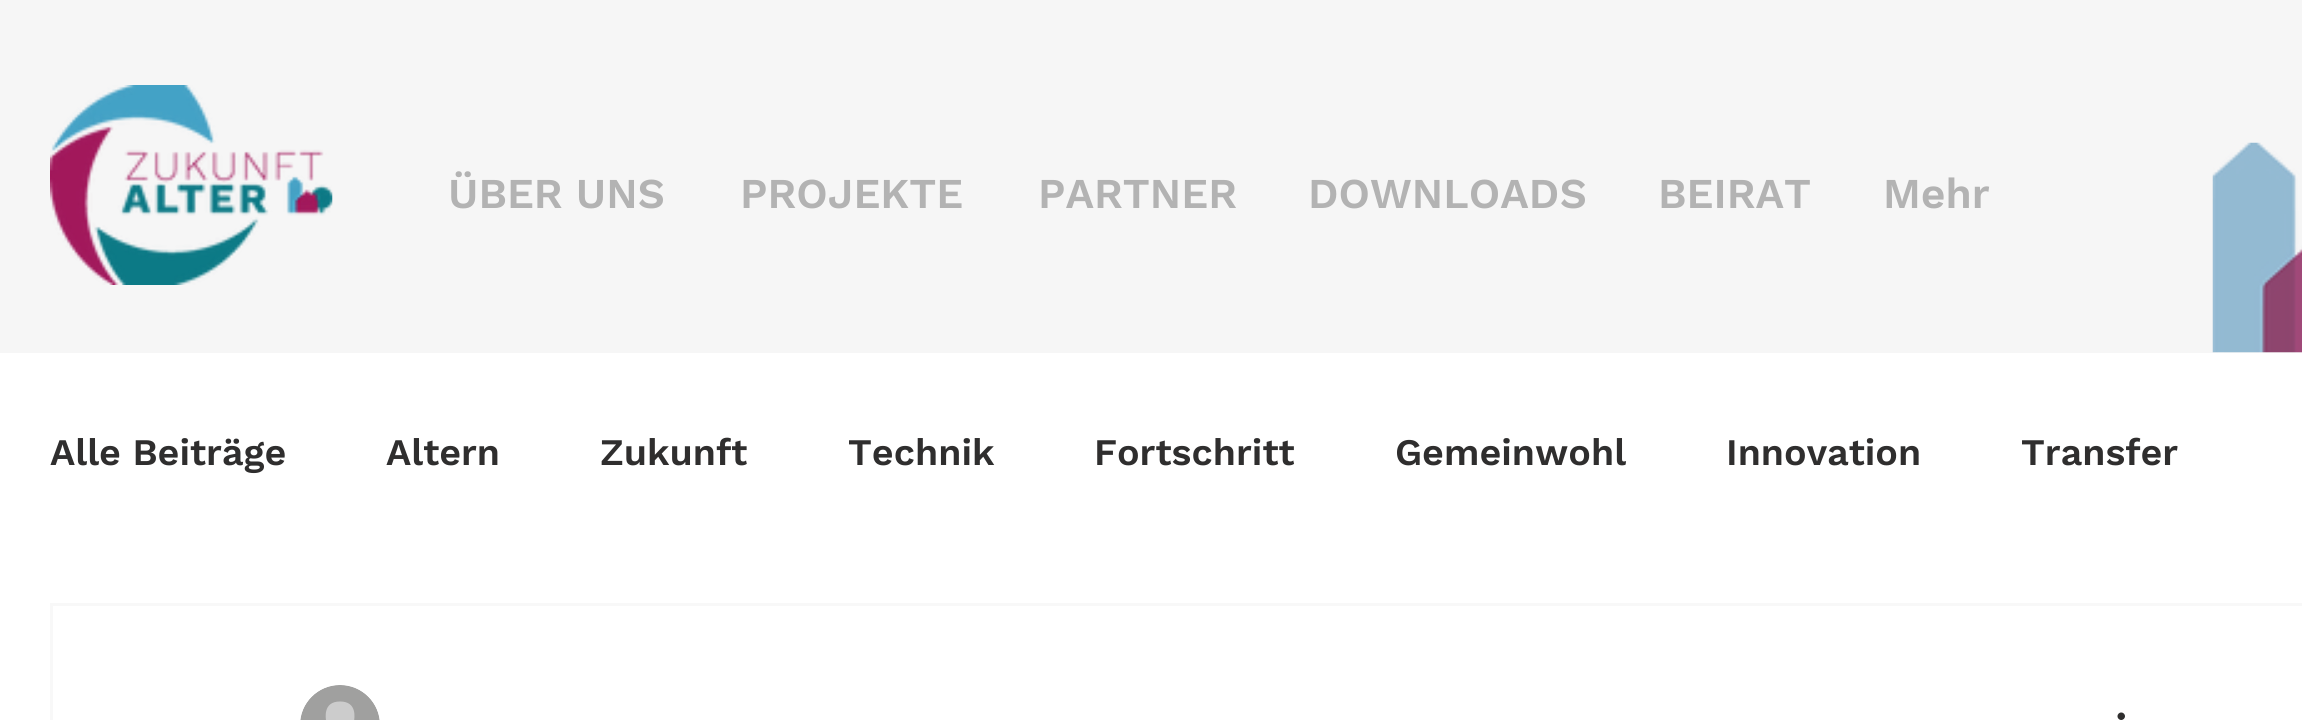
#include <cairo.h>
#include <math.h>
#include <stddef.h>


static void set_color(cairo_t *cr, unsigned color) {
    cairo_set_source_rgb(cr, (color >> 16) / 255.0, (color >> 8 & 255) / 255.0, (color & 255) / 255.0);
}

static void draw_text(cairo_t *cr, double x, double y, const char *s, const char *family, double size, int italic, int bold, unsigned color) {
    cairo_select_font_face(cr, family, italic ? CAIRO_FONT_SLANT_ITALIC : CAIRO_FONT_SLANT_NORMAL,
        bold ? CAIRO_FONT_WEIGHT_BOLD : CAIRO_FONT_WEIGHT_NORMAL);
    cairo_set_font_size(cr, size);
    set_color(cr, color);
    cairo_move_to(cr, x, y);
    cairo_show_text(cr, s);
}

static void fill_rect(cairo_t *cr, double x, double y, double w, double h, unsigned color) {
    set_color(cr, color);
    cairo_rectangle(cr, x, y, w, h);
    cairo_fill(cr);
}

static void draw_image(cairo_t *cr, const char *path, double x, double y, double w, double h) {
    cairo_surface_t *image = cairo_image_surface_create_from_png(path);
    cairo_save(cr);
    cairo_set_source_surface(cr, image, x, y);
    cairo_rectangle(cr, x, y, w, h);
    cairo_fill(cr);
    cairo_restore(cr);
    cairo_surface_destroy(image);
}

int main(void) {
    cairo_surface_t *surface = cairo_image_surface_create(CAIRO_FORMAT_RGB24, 2302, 720);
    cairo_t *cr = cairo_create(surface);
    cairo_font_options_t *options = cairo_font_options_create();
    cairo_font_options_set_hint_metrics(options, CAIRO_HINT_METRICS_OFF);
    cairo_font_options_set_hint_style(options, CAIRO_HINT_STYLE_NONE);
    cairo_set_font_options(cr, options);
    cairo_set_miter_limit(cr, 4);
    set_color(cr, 0xF6F6F6);
    cairo_paint(cr);
    draw_image(cr, "assets/img1.png", 50, 85, 283, 200);
    draw_text(cr, 448, 208, "ÜBER UNS", "Work Sans SemiBold", 42.5, 0, 0, 0xB3B3B3);
    draw_text(cr, 740, 208, "PROJEKTE", "Work Sans SemiBold", 42.5, 0, 0, 0xB3B3B3);
    draw_text(cr, 1038, 208, "PARTNER", "Work Sans SemiBold", 42.5, 0, 0, 0xB3B3B3);
    draw_text(cr, 1308, 208, "DOWNLOADS", "Work Sans SemiBold", 42.5, 0, 0, 0xB3B3B3);
    draw_text(cr, 1658, 208, "BEIRAT", "Work Sans SemiBold", 42.5, 0, 0, 0xB3B3B3);
    draw_text(cr, 1883, 208, "Mehr", "Work Sans SemiBold", 42.5, 0, 0, 0xB3B3B3);
    draw_image(cr, "assets/img2.png", 2212, 142, 90, 211);
    fill_rect(cr, 0, 353, 2302, 367, 0xFFFFFF);
    draw_text(cr, 50, 465, "Alle Beiträge", "Work Sans SemiBold", 37.5, 0, 0, 0x2F2E2E);
    draw_text(cr, 386, 465, "Altern", "Work Sans SemiBold", 37.5, 0, 0, 0x2F2E2E);
    draw_text(cr, 600, 465, "Zukunft", "Work Sans SemiBold", 37.5, 0, 0, 0x2F2E2E);
    draw_text(cr, 848, 465, "Technik", "Work Sans SemiBold", 37.5, 0, 0, 0x2F2E2E);
    draw_text(cr, 1094, 465, "Fortschritt", "Work Sans SemiBold", 37.5, 0, 0, 0x2F2E2E);
    draw_text(cr, 1395, 465, "Gemeinwohl", "Work Sans SemiBold", 37.5, 0, 0, 0x2F2E2E);
    draw_text(cr, 1726, 465, "Innovation", "Work Sans SemiBold", 37.5, 0, 0, 0x2F2E2E);
    draw_text(cr, 2021, 465, "Transfer", "Work Sans SemiBold", 37.5, 0, 0, 0x2F2E2E);
    cairo_rectangle(cr, 51.5, 604.5, 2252, 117);
    set_color(cr, 0xF8F8F8);
    cairo_set_line_width(cr, 3);
    cairo_stroke(cr);
    draw_image(cr, "assets/img3.png", 300, 685, 80, 35);
    draw_image(cr, "assets/img4.png", 2117, 712, 8, 8);
    cairo_surface_write_to_png(surface, "output.png");
    cairo_font_options_destroy(options);
    cairo_destroy(cr);
    cairo_surface_destroy(surface);
    return 0;
}
